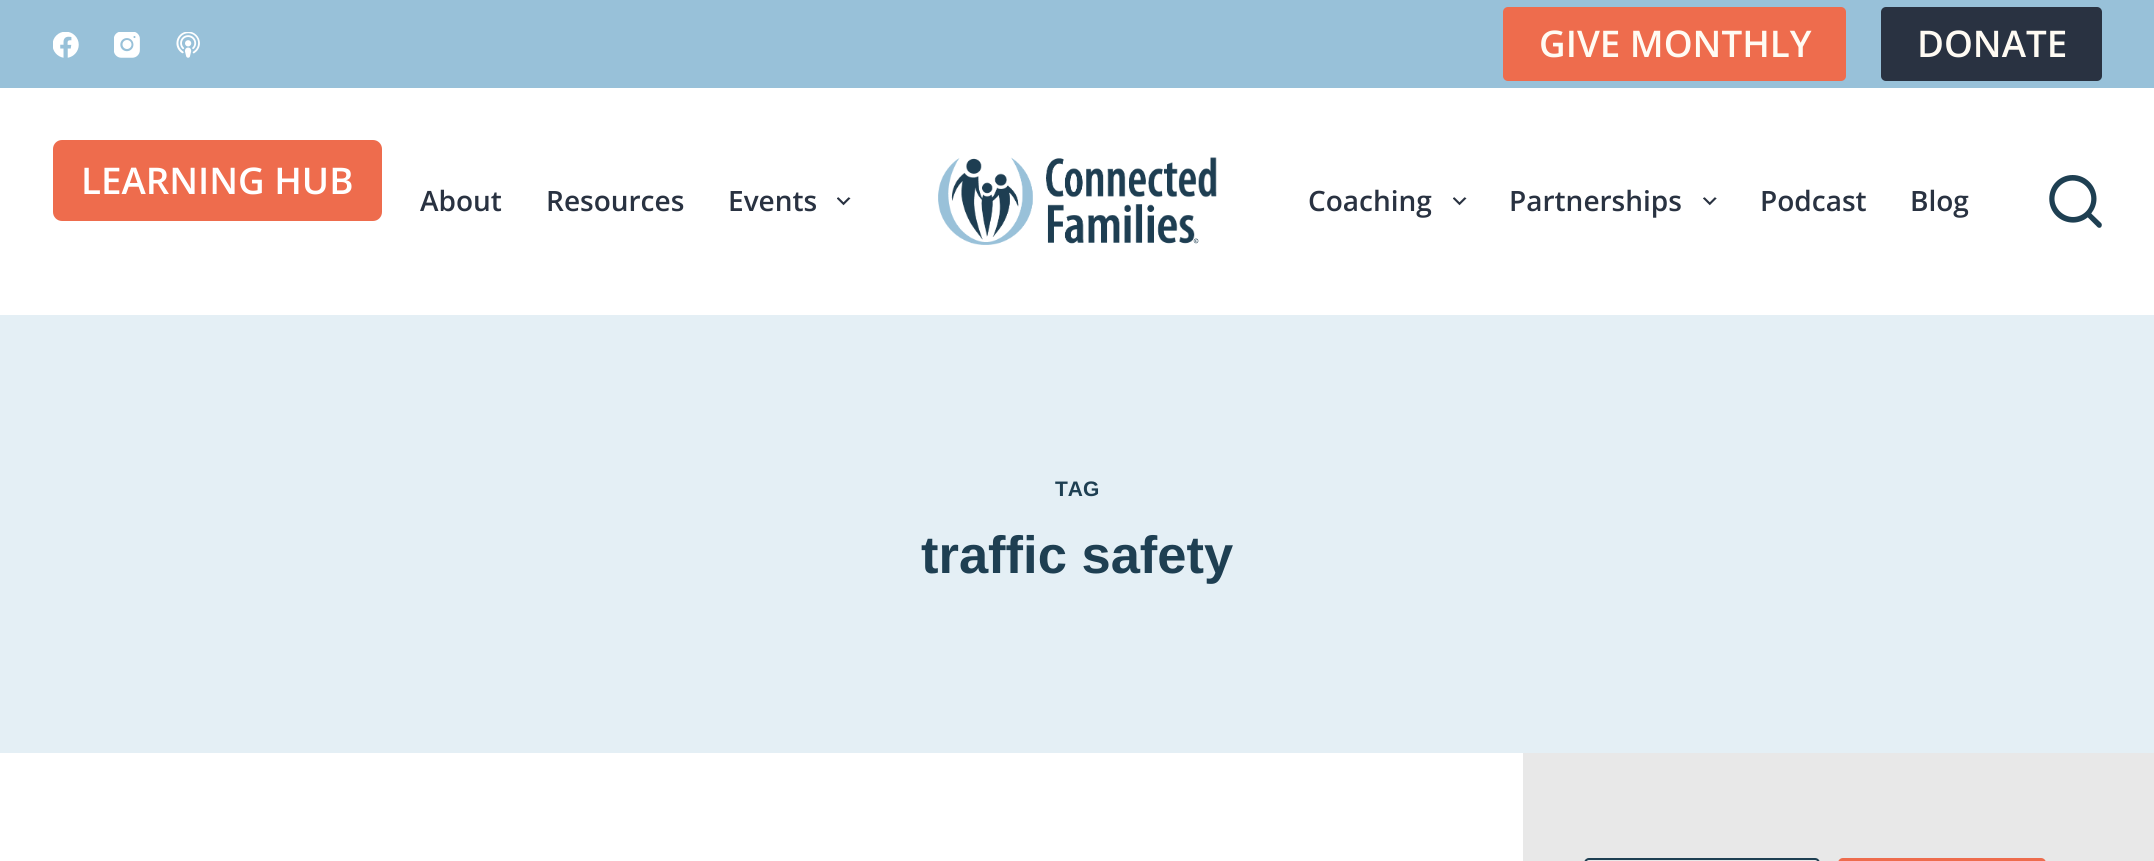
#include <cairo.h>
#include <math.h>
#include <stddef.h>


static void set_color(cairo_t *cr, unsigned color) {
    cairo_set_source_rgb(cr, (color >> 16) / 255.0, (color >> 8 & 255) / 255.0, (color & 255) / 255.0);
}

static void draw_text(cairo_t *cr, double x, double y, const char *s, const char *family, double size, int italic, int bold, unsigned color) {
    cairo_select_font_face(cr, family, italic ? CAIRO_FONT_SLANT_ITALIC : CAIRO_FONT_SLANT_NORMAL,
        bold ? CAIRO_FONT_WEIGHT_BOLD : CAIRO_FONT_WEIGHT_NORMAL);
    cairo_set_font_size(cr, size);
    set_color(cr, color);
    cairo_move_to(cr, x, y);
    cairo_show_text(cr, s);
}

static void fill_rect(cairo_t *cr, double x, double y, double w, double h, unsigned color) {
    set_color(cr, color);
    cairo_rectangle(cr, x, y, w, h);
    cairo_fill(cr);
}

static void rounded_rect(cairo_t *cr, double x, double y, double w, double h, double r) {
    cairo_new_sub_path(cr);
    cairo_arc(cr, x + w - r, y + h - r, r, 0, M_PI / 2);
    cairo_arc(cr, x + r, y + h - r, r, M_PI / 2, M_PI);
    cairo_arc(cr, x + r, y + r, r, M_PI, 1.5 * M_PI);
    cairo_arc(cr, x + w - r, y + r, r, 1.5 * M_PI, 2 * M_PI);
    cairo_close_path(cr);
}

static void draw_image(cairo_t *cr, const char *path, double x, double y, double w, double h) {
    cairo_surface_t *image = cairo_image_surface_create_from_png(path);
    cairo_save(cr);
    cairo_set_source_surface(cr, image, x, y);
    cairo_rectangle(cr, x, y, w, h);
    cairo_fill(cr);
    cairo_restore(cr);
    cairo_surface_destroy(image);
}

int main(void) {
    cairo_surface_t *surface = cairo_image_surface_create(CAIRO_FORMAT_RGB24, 2154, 861);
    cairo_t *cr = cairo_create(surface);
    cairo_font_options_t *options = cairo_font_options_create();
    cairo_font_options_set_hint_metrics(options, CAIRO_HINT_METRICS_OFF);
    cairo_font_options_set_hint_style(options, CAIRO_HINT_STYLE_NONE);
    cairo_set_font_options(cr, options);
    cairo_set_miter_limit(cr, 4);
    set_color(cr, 0xFFFFFF);
    cairo_paint(cr);
    fill_rect(cr, 0, 0, 2154, 88, 0x98C1D9);
    draw_image(cr, "assets/img1.png", 53, 32, 26, 26);
    draw_image(cr, "assets/img2.png", 114, 32, 26, 26);
    draw_image(cr, "assets/img3.png", 176, 32, 24, 26);
    set_color(cr, 0xEE6C4D);
    rounded_rect(cr, 1503, 7, 343, 74, 5);
    cairo_fill(cr);
    draw_text(cr, 1539, 57, "GIVE MONTHLY", "Open Sans SemiBold", 36.75, 0, 0, 0xFFFBF3);
    set_color(cr, 0x293241);
    rounded_rect(cr, 1881, 7, 221, 74, 5);
    cairo_fill(cr);
    draw_text(cr, 1917, 57, "DONATE", "Open Sans SemiBold", 36.75, 0, 0, 0xFFFBF3);
    set_color(cr, 0xEE6C4D);
    rounded_rect(cr, 53, 140, 329, 81, 9);
    cairo_fill(cr);
    draw_text(cr, 81, 194, "LEARNING HUB", "Open Sans SemiBold", 36.75, 0, 0, 0xFFFFFF);
    draw_text(cr, 420, 211, "About", "Open Sans SemiBold", 28, 0, 0, 0x293241);
    draw_text(cr, 546, 211, "Resources", "Open Sans SemiBold", 28, 0, 0, 0x293241);
    draw_text(cr, 728, 211, "Events", "Open Sans SemiBold", 28, 0, 0, 0x293241);
    draw_image(cr, "assets/img4.png", 837, 197, 14, 9);
    draw_image(cr, "assets/img5.png", 938, 157, 279, 88);
    draw_text(cr, 1308, 211, "Coaching", "Open Sans SemiBold", 28, 0, 0, 0x293241);
    draw_image(cr, "assets/img4.png", 1453, 197, 14, 9);
    draw_text(cr, 1509, 211, "Partnerships", "Open Sans SemiBold", 28, 0, 0, 0x293241);
    draw_image(cr, "assets/img6.png", 1703, 197, 14, 9);
    draw_text(cr, 1760, 211, "Podcast", "Open Sans SemiBold", 28, 0, 0, 0x293241);
    draw_text(cr, 1910, 211, "Blog", "Open Sans SemiBold", 28, 0, 0, 0x293241);
    draw_image(cr, "assets/img7.png", 2049, 175, 53, 53);
    fill_rect(cr, 0, 315, 2154, 438, 0xE4EFF5);
    draw_text(cr, 1055, 496, "TAG", "Liberation Sans", 21, 0, 1, 0x1E3F52);
    draw_text(cr, 921, 573, "traffic safety", "Liberation Sans", 52.5, 0, 1, 0x1E3F52);
    fill_rect(cr, 1523, 753, 631, 108, 0xE8E8E8);
    rounded_rect(cr, 1585, 859, 234, 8, 4);
    set_color(cr, 0x1E3F52);
    cairo_stroke(cr);
    set_color(cr, 0xEE6C4D);
    rounded_rect(cr, 1838, 858, 208, 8, 5);
    cairo_fill(cr);
    cairo_surface_write_to_png(surface, "output.png");
    cairo_font_options_destroy(options);
    cairo_destroy(cr);
    cairo_surface_destroy(surface);
    return 0;
}
